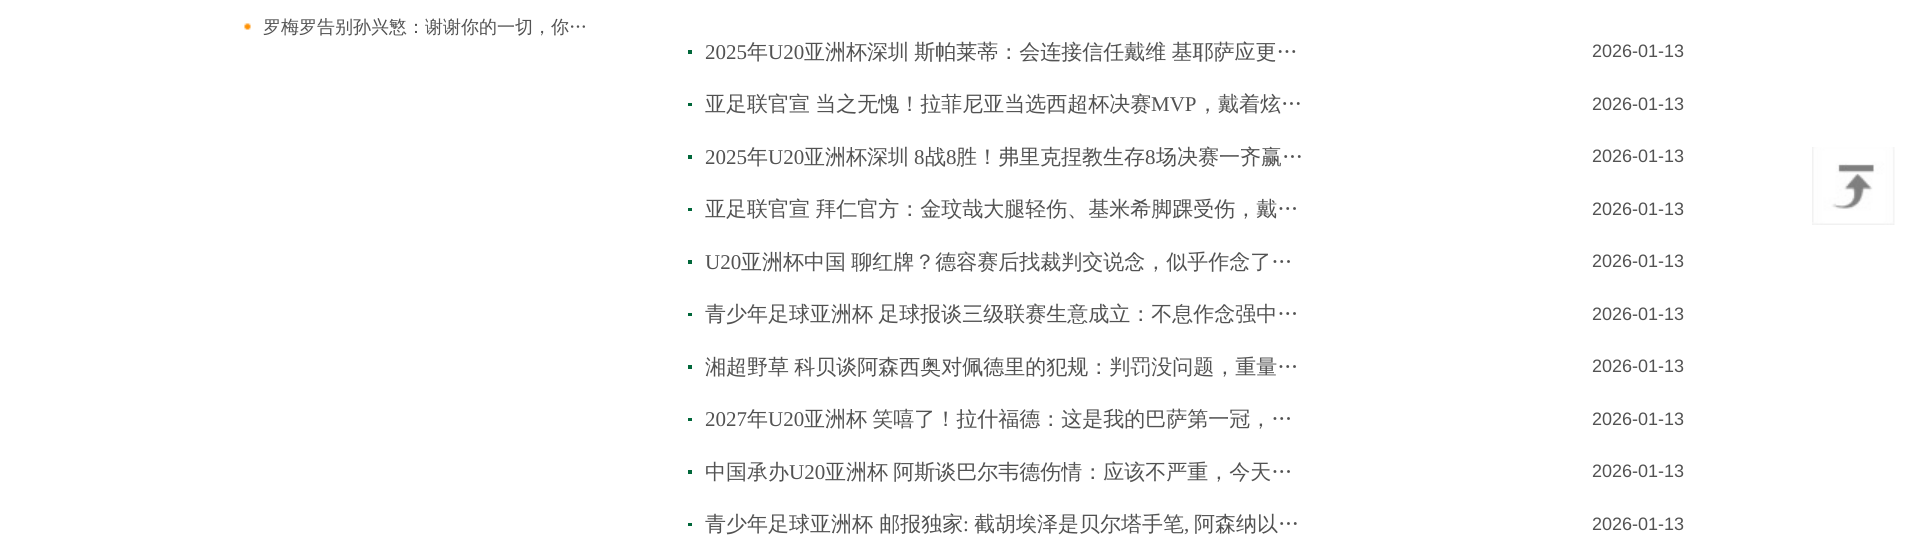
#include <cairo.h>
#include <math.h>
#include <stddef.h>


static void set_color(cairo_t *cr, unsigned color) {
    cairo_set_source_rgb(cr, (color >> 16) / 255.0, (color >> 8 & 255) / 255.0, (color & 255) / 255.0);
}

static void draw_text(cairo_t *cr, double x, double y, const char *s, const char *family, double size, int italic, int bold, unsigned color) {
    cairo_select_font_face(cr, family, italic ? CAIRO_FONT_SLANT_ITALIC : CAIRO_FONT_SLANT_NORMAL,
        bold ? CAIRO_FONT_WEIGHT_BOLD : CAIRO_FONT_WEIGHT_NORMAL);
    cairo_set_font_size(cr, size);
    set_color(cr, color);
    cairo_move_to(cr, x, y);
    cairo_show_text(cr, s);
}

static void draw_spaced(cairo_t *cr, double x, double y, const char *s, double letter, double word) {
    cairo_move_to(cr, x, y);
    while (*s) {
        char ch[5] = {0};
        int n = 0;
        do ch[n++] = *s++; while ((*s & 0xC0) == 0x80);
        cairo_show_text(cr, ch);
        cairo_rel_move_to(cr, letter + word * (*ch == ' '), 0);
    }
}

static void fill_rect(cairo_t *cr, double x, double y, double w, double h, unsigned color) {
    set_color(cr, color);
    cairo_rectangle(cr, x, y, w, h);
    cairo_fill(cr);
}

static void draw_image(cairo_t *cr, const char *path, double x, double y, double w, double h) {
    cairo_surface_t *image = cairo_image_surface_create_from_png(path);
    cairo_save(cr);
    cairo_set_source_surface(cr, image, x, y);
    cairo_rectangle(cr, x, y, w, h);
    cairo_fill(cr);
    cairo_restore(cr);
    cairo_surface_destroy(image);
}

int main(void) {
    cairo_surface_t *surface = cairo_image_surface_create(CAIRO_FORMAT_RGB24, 1932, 539);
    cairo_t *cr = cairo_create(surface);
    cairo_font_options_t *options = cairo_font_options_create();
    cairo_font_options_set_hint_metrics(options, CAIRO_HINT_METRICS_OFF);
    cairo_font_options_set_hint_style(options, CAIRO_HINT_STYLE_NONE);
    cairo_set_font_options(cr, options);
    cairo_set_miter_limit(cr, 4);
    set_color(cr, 0xFFFFFF);
    cairo_paint(cr);
    draw_image(cr, "assets/img1.png", 244, 23, 7, 7);
    draw_text(cr, 263, 33, "罗梅罗告别孙兴慜：谢谢你的一切，你…", "WenQuanYi Zen Hei Medium", 18, 0, 0, 0x525252);
    fill_rect(cr, 688, 50, 4, 4, 0x01673A);
    draw_text(cr, 705, 59, "2025", "Liberation Serif", 21, 0, 0, 0x525252);
    draw_text(cr, 747, 59, "年", "WenQuanYi Zen Hei Medium", 21, 0, 0, 0x525252);
    draw_text(cr, 768, 59, "U20", "Liberation Serif", 21, 0, 0, 0x525252);
    cairo_select_font_face(cr, "WenQuanYi Zen Hei Medium", CAIRO_FONT_SLANT_NORMAL, CAIRO_FONT_WEIGHT_NORMAL);
    draw_spaced(cr, 804, 59, "亚洲杯深圳 斯帕莱蒂：会连接信任戴维 基耶萨应更…", 0, -1);
    draw_text(cr, 1592, 57, "2026-01-13", "Liberation Sans", 18, 0, 0, 0x525252);
    fill_rect(cr, 688, 103, 4, 3, 0x01673A);
    cairo_select_font_face(cr, "WenQuanYi Zen Hei Medium", CAIRO_FONT_SLANT_NORMAL, CAIRO_FONT_WEIGHT_NORMAL);
    cairo_set_font_size(cr, 21);
    set_color(cr, 0x525252);
    draw_spaced(cr, 705, 111, "亚足联官宣 当之无愧！拉菲尼亚当选西超杯决赛", 0, -1);
    draw_text(cr, 1151, 111, "MVP", "Liberation Serif", 21, 0, 0, 0x525252);
    draw_text(cr, 1197, 111, "，戴着炫…", "WenQuanYi Zen Hei Medium", 21, 0, 0, 0x525252);
    draw_text(cr, 1592, 110, "2026-01-13", "Liberation Sans", 18, 0, 0, 0x525252);
    fill_rect(cr, 688, 155, 4, 4, 0x01673A);
    draw_text(cr, 705, 164, "2025", "Liberation Serif", 21, 0, 0, 0x525252);
    draw_text(cr, 747, 164, "年", "WenQuanYi Zen Hei Medium", 21, 0, 0, 0x525252);
    draw_text(cr, 768, 164, "U20", "Liberation Serif", 21, 0, 0, 0x525252);
    draw_text(cr, 804, 164, "亚洲杯深圳", "WenQuanYi Zen Hei Medium", 21, 0, 0, 0x525252);
    draw_text(cr, 914, 164, "8", "Liberation Serif", 21, 0, 0, 0x525252);
    draw_text(cr, 925, 164, "战", "WenQuanYi Zen Hei Medium", 21, 0, 0, 0x525252);
    draw_text(cr, 946, 164, "8", "Liberation Serif", 21, 0, 0, 0x525252);
    draw_text(cr, 956, 164, "胜！弗里克捏教生存", "WenQuanYi Zen Hei Medium", 21, 0, 0, 0x525252);
    draw_text(cr, 1145, 164, "8", "Liberation Serif", 21, 0, 0, 0x525252);
    draw_text(cr, 1156, 164, "场决赛一齐赢…", "WenQuanYi Zen Hei Medium", 21, 0, 0, 0x525252);
    draw_text(cr, 1592, 162, "2026-01-13", "Liberation Sans", 18, 0, 0, 0x525252);
    fill_rect(cr, 688, 208, 4, 3, 0x01673A);
    cairo_select_font_face(cr, "WenQuanYi Zen Hei Medium", CAIRO_FONT_SLANT_NORMAL, CAIRO_FONT_WEIGHT_NORMAL);
    cairo_set_font_size(cr, 21);
    set_color(cr, 0x525252);
    draw_spaced(cr, 705, 216, "亚足联官宣 拜仁官方：金玟哉大腿轻伤、基米希脚踝受伤，戴…", 0, -1);
    draw_text(cr, 1592, 215, "2026-01-13", "Liberation Sans", 18, 0, 0, 0x525252);
    fill_rect(cr, 688, 260, 4, 4, 0x01673A);
    draw_text(cr, 705, 269, "U20", "Liberation Serif", 21, 0, 0, 0x525252);
    cairo_select_font_face(cr, "WenQuanYi Zen Hei Medium", CAIRO_FONT_SLANT_NORMAL, CAIRO_FONT_WEIGHT_NORMAL);
    draw_spaced(cr, 741, 269, "亚洲杯中国 聊红牌？德容赛后找裁判交说念，似乎作念了…", 0, -1);
    draw_text(cr, 1592, 267, "2026-01-13", "Liberation Sans", 18, 0, 0, 0x525252);
    fill_rect(cr, 688, 313, 4, 3, 0x01673A);
    cairo_select_font_face(cr, "WenQuanYi Zen Hei Medium", CAIRO_FONT_SLANT_NORMAL, CAIRO_FONT_WEIGHT_NORMAL);
    cairo_set_font_size(cr, 21);
    set_color(cr, 0x525252);
    draw_spaced(cr, 705, 321, "青少年足球亚洲杯 足球报谈三级联赛生意成立：不息作念强中…", 0, -1);
    draw_text(cr, 1592, 320, "2026-01-13", "Liberation Sans", 18, 0, 0, 0x525252);
    fill_rect(cr, 688, 365, 4, 4, 0x01673A);
    cairo_select_font_face(cr, "WenQuanYi Zen Hei Medium", CAIRO_FONT_SLANT_NORMAL, CAIRO_FONT_WEIGHT_NORMAL);
    cairo_set_font_size(cr, 21);
    set_color(cr, 0x525252);
    draw_spaced(cr, 705, 374, "湘超野草 科贝谈阿森西奥对佩德里的犯规：判罚没问题，重量…", 0, -1);
    draw_text(cr, 1592, 372, "2026-01-13", "Liberation Sans", 18, 0, 0, 0x525252);
    fill_rect(cr, 688, 418, 4, 3, 0x01673A);
    draw_text(cr, 705, 426, "2027", "Liberation Serif", 21, 0, 0, 0x525252);
    draw_text(cr, 747, 426, "年", "WenQuanYi Zen Hei Medium", 21, 0, 0, 0x525252);
    draw_text(cr, 768, 426, "U20", "Liberation Serif", 21, 0, 0, 0x525252);
    cairo_select_font_face(cr, "WenQuanYi Zen Hei Medium", CAIRO_FONT_SLANT_NORMAL, CAIRO_FONT_WEIGHT_NORMAL);
    draw_spaced(cr, 804, 426, "亚洲杯 笑嘻了！拉什福德：这是我的巴萨第一冠，…", 0, -1);
    draw_text(cr, 1592, 425, "2026-01-13", "Liberation Sans", 18, 0, 0, 0x525252);
    fill_rect(cr, 688, 470, 4, 4, 0x01673A);
    draw_text(cr, 705, 479, "中国承办", "WenQuanYi Zen Hei Medium", 21, 0, 0, 0x525252);
    draw_text(cr, 789, 479, "U20", "Liberation Serif", 21, 0, 0, 0x525252);
    cairo_select_font_face(cr, "WenQuanYi Zen Hei Medium", CAIRO_FONT_SLANT_NORMAL, CAIRO_FONT_WEIGHT_NORMAL);
    draw_spaced(cr, 825, 479, "亚洲杯 阿斯谈巴尔韦德伤情：应该不严重，今天…", 0, -1);
    draw_text(cr, 1592, 477, "2026-01-13", "Liberation Sans", 18, 0, 0, 0x525252);
    fill_rect(cr, 688, 523, 4, 3, 0x01673A);
    draw_text(cr, 705, 531, "青少年足球亚洲杯 邮报独家", "WenQuanYi Zen Hei Medium", 21, 0, 0, 0x525252);
    draw_text(cr, 963, 531, ":", "Liberation Serif", 21, 0, 0, 0x525252);
    draw_text(cr, 974, 531, "截胡埃泽是贝尔塔手笔", "WenQuanYi Zen Hei Medium", 21, 0, 0, 0x525252);
    draw_text(cr, 1184, 531, ",", "Liberation Serif", 21, 0, 0, 0x525252);
    draw_text(cr, 1194, 531, "阿森纳以…", "WenQuanYi Zen Hei Medium", 21, 0, 0, 0x525252);
    draw_text(cr, 1592, 530, "2026-01-13", "Liberation Sans", 18, 0, 0, 0x525252);
    draw_image(cr, "assets/img2.png", 1812, 147, 83, 78);
    cairo_surface_write_to_png(surface, "output.png");
    cairo_font_options_destroy(options);
    cairo_destroy(cr);
    cairo_surface_destroy(surface);
    return 0;
}
